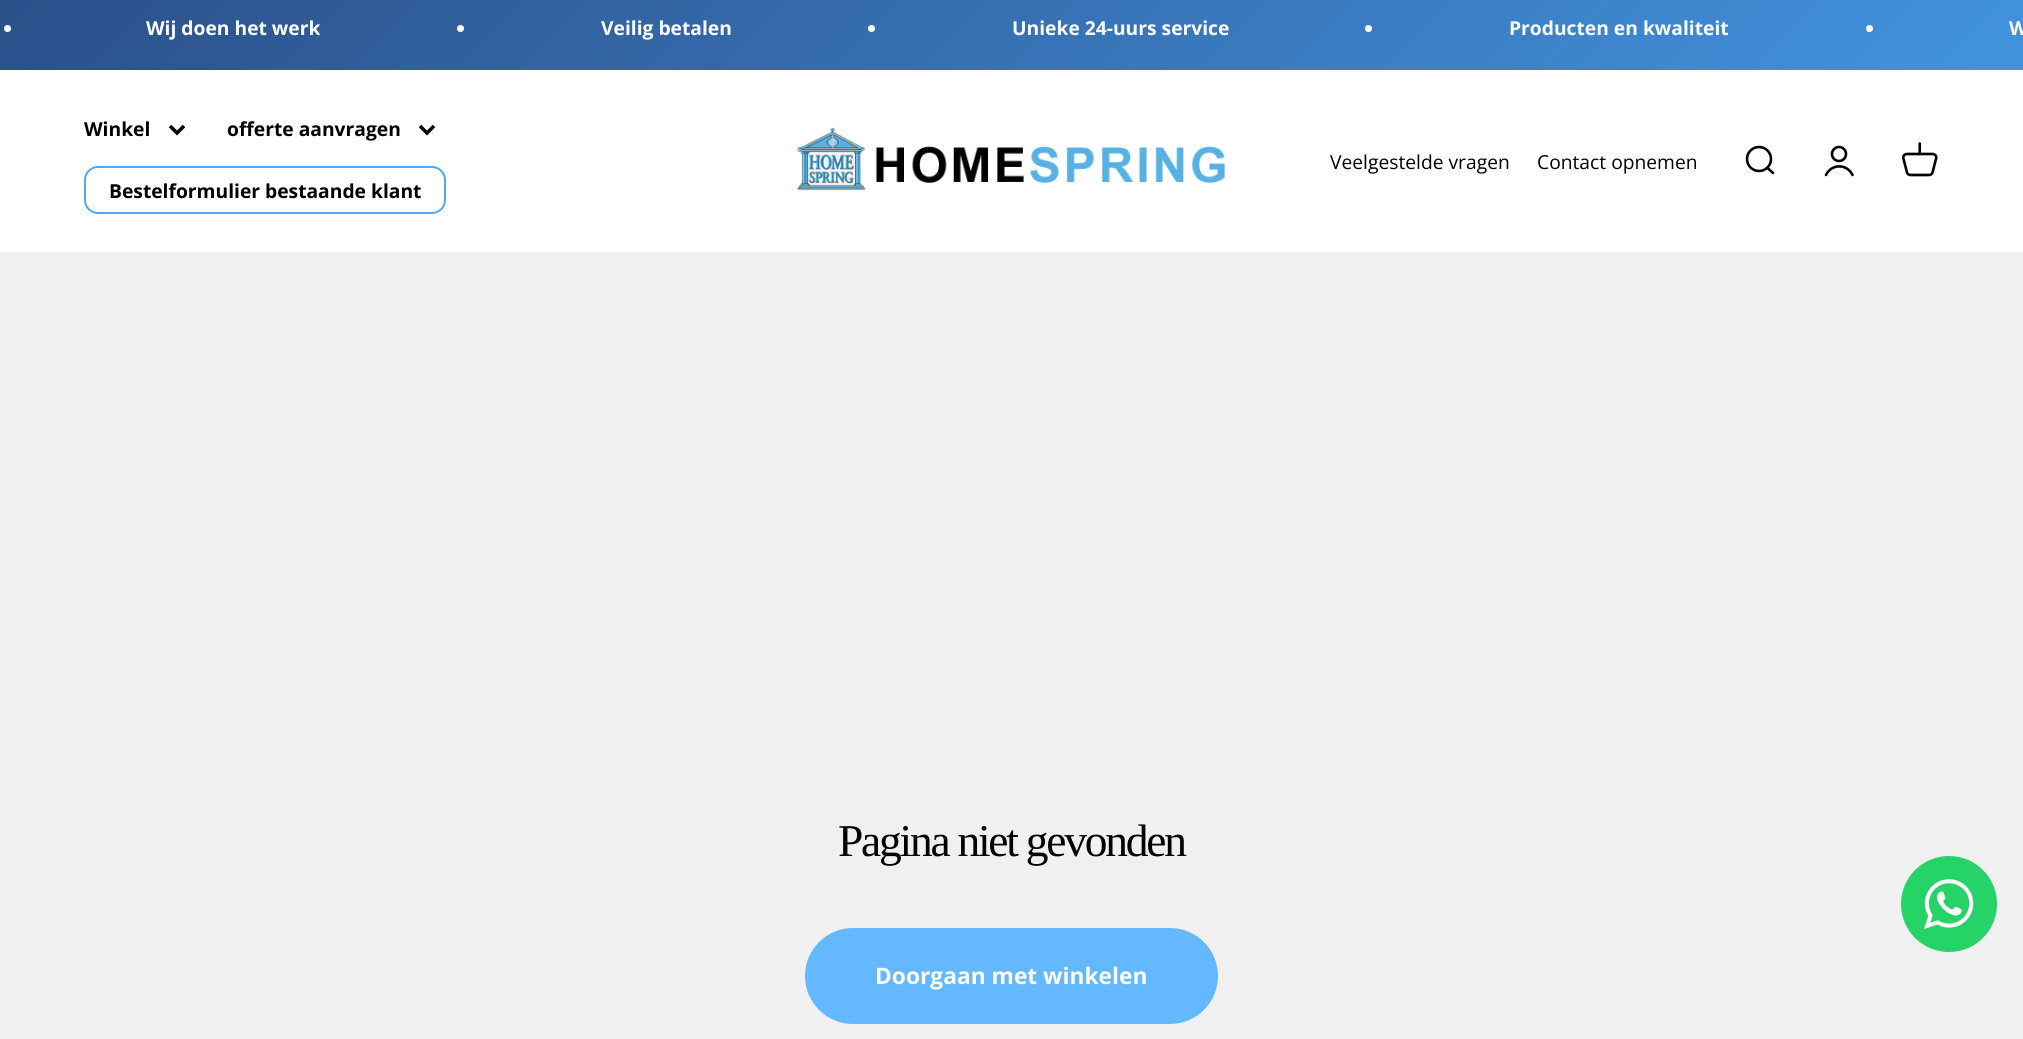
#include <cairo.h>
#include <math.h>
#include <stddef.h>


static void set_color(cairo_t *cr, unsigned color) {
    cairo_set_source_rgb(cr, (color >> 16) / 255.0, (color >> 8 & 255) / 255.0, (color & 255) / 255.0);
}

static void draw_text(cairo_t *cr, double x, double y, const char *s, const char *family, double size, int italic, int bold, unsigned color) {
    cairo_select_font_face(cr, family, italic ? CAIRO_FONT_SLANT_ITALIC : CAIRO_FONT_SLANT_NORMAL,
        bold ? CAIRO_FONT_WEIGHT_BOLD : CAIRO_FONT_WEIGHT_NORMAL);
    cairo_set_font_size(cr, size);
    set_color(cr, color);
    cairo_move_to(cr, x, y);
    cairo_show_text(cr, s);
}

static void draw_spaced(cairo_t *cr, double x, double y, const char *s, double letter, double word) {
    cairo_move_to(cr, x, y);
    while (*s) {
        char ch[5] = {0};
        int n = 0;
        do ch[n++] = *s++; while ((*s & 0xC0) == 0x80);
        cairo_show_text(cr, ch);
        cairo_rel_move_to(cr, letter + word * (*ch == ' '), 0);
    }
}

static void fill_rect(cairo_t *cr, double x, double y, double w, double h, unsigned color) {
    set_color(cr, color);
    cairo_rectangle(cr, x, y, w, h);
    cairo_fill(cr);
}

static void rounded_rect(cairo_t *cr, double x, double y, double w, double h, double r) {
    cairo_new_sub_path(cr);
    cairo_arc(cr, x + w - r, y + h - r, r, 0, M_PI / 2);
    cairo_arc(cr, x + r, y + h - r, r, M_PI / 2, M_PI);
    cairo_arc(cr, x + r, y + r, r, M_PI, 1.5 * M_PI);
    cairo_arc(cr, x + w - r, y + r, r, 1.5 * M_PI, 2 * M_PI);
    cairo_close_path(cr);
}

static void draw_image(cairo_t *cr, const char *path, double x, double y, double w, double h) {
    cairo_surface_t *image = cairo_image_surface_create_from_png(path);
    cairo_save(cr);
    cairo_set_source_surface(cr, image, x, y);
    cairo_rectangle(cr, x, y, w, h);
    cairo_fill(cr);
    cairo_restore(cr);
    cairo_surface_destroy(image);
}

int main(void) {
    cairo_surface_t *surface = cairo_image_surface_create(CAIRO_FORMAT_RGB24, 2023, 1039);
    cairo_t *cr = cairo_create(surface);
    cairo_font_options_t *options = cairo_font_options_create();
    cairo_font_options_set_hint_metrics(options, CAIRO_HINT_METRICS_OFF);
    cairo_font_options_set_hint_style(options, CAIRO_HINT_STYLE_NONE);
    cairo_set_font_options(cr, options);
    cairo_set_miter_limit(cr, 4);
    cairo_pattern_t *gradient;
    set_color(cr, 0xF0F0F0);
    cairo_paint(cr);
    gradient = cairo_pattern_create_linear(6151, 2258, 1941, -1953);
    cairo_pattern_add_color_stop_rgba(gradient, 0, 0.031, 0.557, 1, 1);
    cairo_pattern_add_color_stop_rgba(gradient, 0.33, 0.078, 0.404, 0.678, 1);
    cairo_pattern_add_color_stop_rgba(gradient, 0.67, 0.29, 0.663, 0.98, 1);
    cairo_pattern_add_color_stop_rgba(gradient, 1, 0.169, 0.31, 0.537, 1);
    cairo_set_source(cr, gradient);
    cairo_pattern_destroy(gradient);
    cairo_rectangle(cr, 0, 0, 2023, 70);
    cairo_fill(cr);
    set_color(cr, 0xFFFFFF);
    cairo_arc(cr, 7.5, 28.5, 3.5, 0, 2 * M_PI);
    cairo_fill(cr);
    draw_text(cr, 146, 35, "Wij doen het werk", "Open Sans", 19.25, 0, 1, 0xFFFFFF);
    cairo_new_path(cr);
    cairo_arc(cr, 460.5, 28.5, 3.5, 0, 2 * M_PI);
    cairo_fill(cr);
    draw_text(cr, 601, 35, "Veilig betalen", "Open Sans", 19.25, 0, 1, 0xFFFFFF);
    cairo_new_path(cr);
    cairo_arc(cr, 871.5, 28.5, 3.5, 0, 2 * M_PI);
    cairo_fill(cr);
    draw_text(cr, 1012, 35, "Unieke 24-uurs service", "Open Sans", 19.25, 0, 1, 0xFFFFFF);
    cairo_new_path(cr);
    cairo_arc(cr, 1368.5, 28.5, 3.5, 0, 2 * M_PI);
    cairo_fill(cr);
    draw_text(cr, 1509, 35, "Producten en kwaliteit", "Open Sans", 19.25, 0, 1, 0xFFFFFF);
    cairo_new_path(cr);
    cairo_arc(cr, 1869.5, 28.5, 3.5, 0, 2 * M_PI);
    cairo_fill(cr);
    draw_text(cr, 2009, 35, "W", "Open Sans", 19.25, 0, 1, 0xFFFFFF);
    fill_rect(cr, 0, 70, 2023, 182, 0xFFFFFF);
    draw_text(cr, 84, 136, "Winkel", "Open Sans", 19.25, 0, 1, 0x000000);
    cairo_new_path(cr);
    cairo_move_to(cr, 170, 126);
    cairo_line_to(cr, 177, 133);
    cairo_line_to(cr, 184, 126);
    cairo_set_line_width(cr, 3.5);
    cairo_stroke(cr);
    draw_text(cr, 227, 136, "offerte aanvragen", "Open Sans", 19.25, 0, 1, 0x000000);
    cairo_new_path(cr);
    cairo_move_to(cr, 420, 126);
    cairo_line_to(cr, 427, 133);
    cairo_line_to(cr, 434, 126);
    cairo_stroke(cr);
    rounded_rect(cr, 85, 167, 360, 46, 13);
    set_color(cr, 0x4AA9FA);
    cairo_set_line_width(cr, 2);
    cairo_stroke(cr);
    draw_text(cr, 109, 198, "Bestelformulier bestaande klant", "Open Sans", 19.25, 0, 1, 0x000000);
    draw_image(cr, "assets/img1.png", 797, 127, 428, 64);
    draw_text(cr, 1330, 169, "Veelgestelde vragen", "Open Sans", 19.25, 0, 0, 0x000000);
    draw_text(cr, 1537, 169, "Contact opnemen", "Open Sans", 19.25, 0, 0, 0x000000);
    cairo_new_path(cr);
    cairo_arc(cr, 1759, 159, 12, 0, 2 * M_PI);
    cairo_set_line_width(cr, 2.6);
    cairo_stroke(cr);
    cairo_new_path(cr);
    cairo_move_to(cr, 1767.5, 168);
    cairo_line_to(cr, 1773, 173);
    cairo_set_line_cap(cr, CAIRO_LINE_CAP_ROUND);
    cairo_set_line_join(cr, CAIRO_LINE_JOIN_ROUND);
    cairo_stroke(cr);
    cairo_arc(cr, 1839, 154, 7, 0, 2 * M_PI);
    cairo_set_line_cap(cr, CAIRO_LINE_CAP_BUTT);
    cairo_set_line_join(cr, CAIRO_LINE_JOIN_MITER);
    cairo_stroke(cr);
    cairo_new_path(cr);
    cairo_move_to(cr, 1826, 175);
    cairo_curve_to(cr, 1831.5, 163.5, 1847, 163.5, 1852.5, 175);
    cairo_set_line_cap(cr, CAIRO_LINE_CAP_ROUND);
    cairo_stroke(cr);
    draw_image(cr, "assets/img2.png", 1902, 142, 36, 35);
    cairo_select_font_face(cr, "Liberation Serif", CAIRO_FONT_SLANT_NORMAL, CAIRO_FONT_WEIGHT_NORMAL);
    cairo_set_font_size(cr, 45.5);
    draw_spaced(cr, 838, 856, "Pagina niet gevonden", -2.25, 0);
    set_color(cr, 0x64B8FF);
    rounded_rect(cr, 805, 928, 413, 96, 48);
    cairo_fill(cr);
    draw_text(cr, 875, 984, "Doorgaan met winkelen", "Open Sans", 22.75, 0, 1, 0xFFFFFF);
    set_color(cr, 0x25D366);
    cairo_new_path(cr);
    cairo_arc(cr, 1949, 904, 48, 0, 2 * M_PI);
    cairo_fill(cr);
    draw_image(cr, "assets/img3.png", 1924, 879, 50, 50);
    cairo_surface_write_to_png(surface, "output.png");
    cairo_font_options_destroy(options);
    cairo_destroy(cr);
    cairo_surface_destroy(surface);
    return 0;
}
